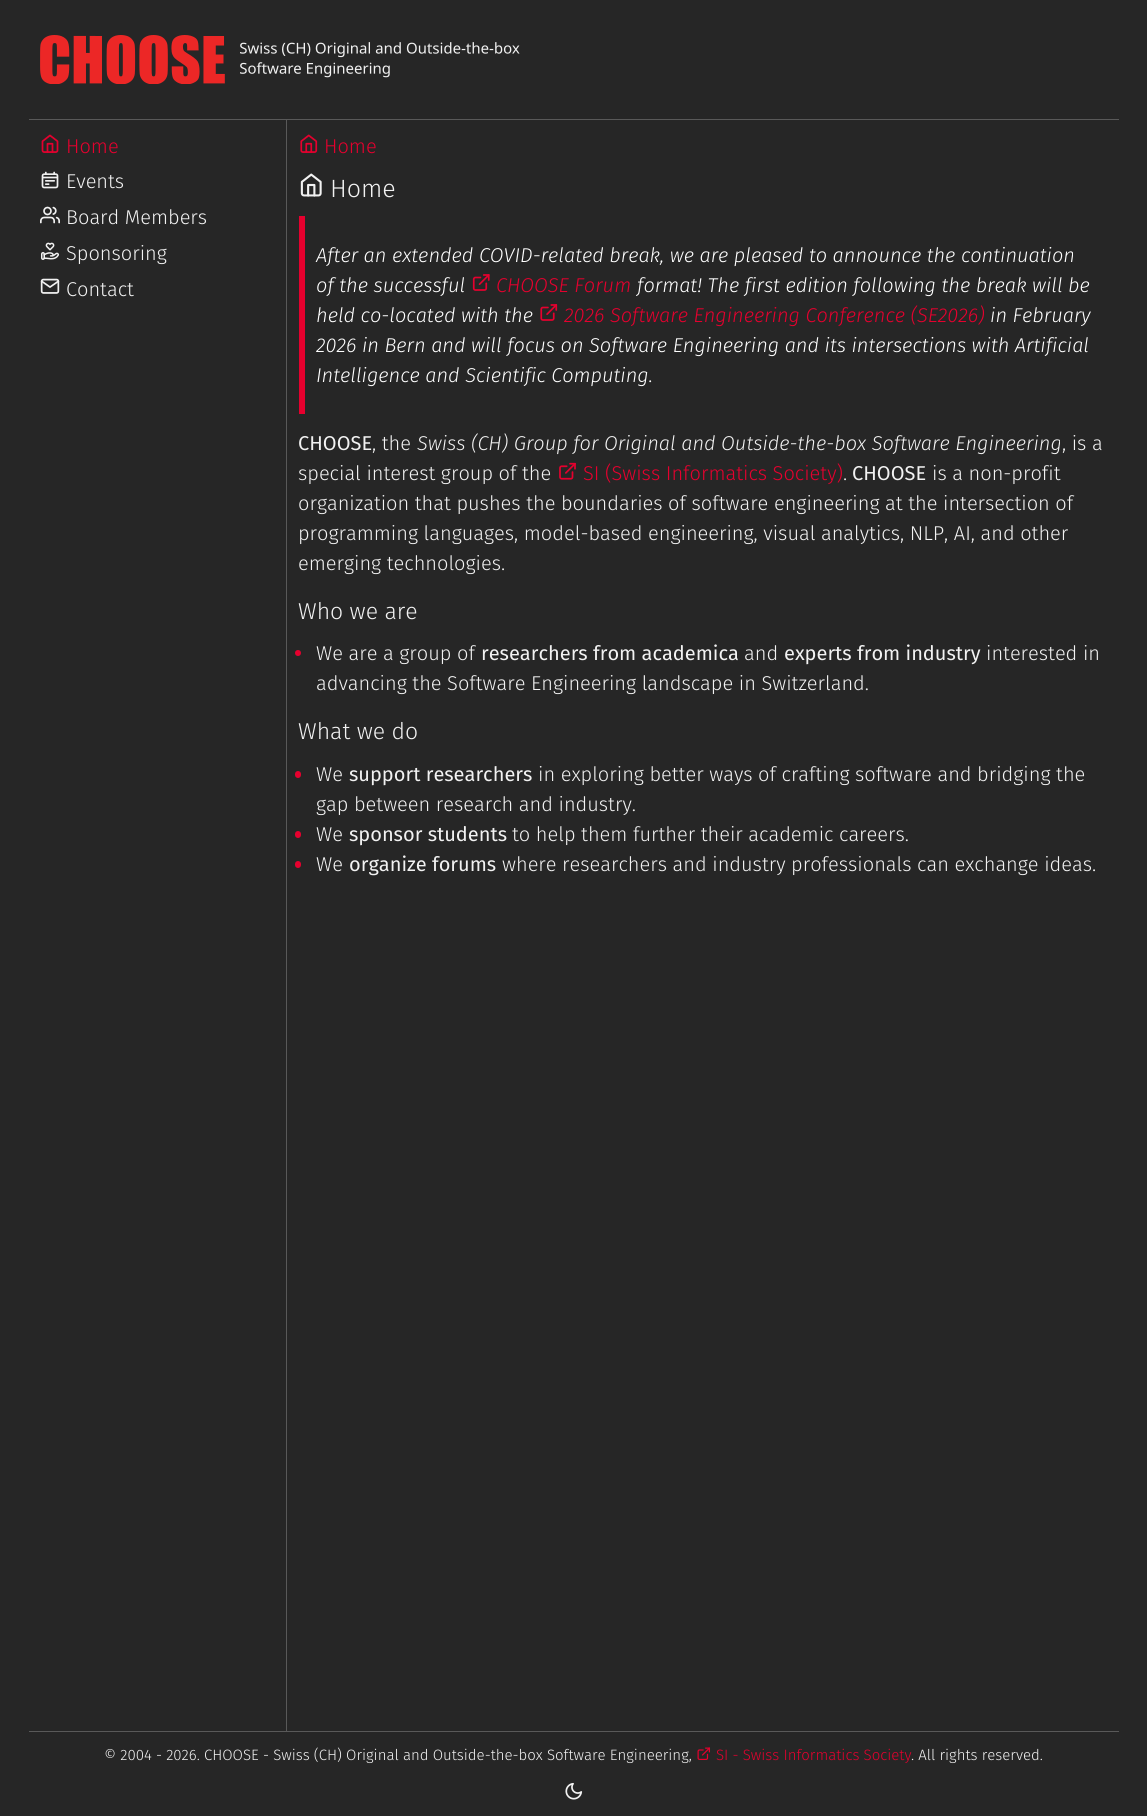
#include <cairo.h>
#include <math.h>
#include <stddef.h>


static void set_color(cairo_t *cr, unsigned color) {
    cairo_set_source_rgb(cr, (color >> 16) / 255.0, (color >> 8 & 255) / 255.0, (color & 255) / 255.0);
}

static void draw_text(cairo_t *cr, double x, double y, const char *s, const char *family, double size, int italic, int bold, unsigned color) {
    cairo_select_font_face(cr, family, italic ? CAIRO_FONT_SLANT_ITALIC : CAIRO_FONT_SLANT_NORMAL,
        bold ? CAIRO_FONT_WEIGHT_BOLD : CAIRO_FONT_WEIGHT_NORMAL);
    cairo_set_font_size(cr, size);
    set_color(cr, color);
    cairo_move_to(cr, x, y);
    cairo_show_text(cr, s);
}

static void fill_rect(cairo_t *cr, double x, double y, double w, double h, unsigned color) {
    set_color(cr, color);
    cairo_rectangle(cr, x, y, w, h);
    cairo_fill(cr);
}

static void rounded_rect(cairo_t *cr, double x, double y, double w, double h, double r) {
    cairo_new_sub_path(cr);
    cairo_arc(cr, x + w - r, y + h - r, r, 0, M_PI / 2);
    cairo_arc(cr, x + r, y + h - r, r, M_PI / 2, M_PI);
    cairo_arc(cr, x + r, y + r, r, M_PI, 1.5 * M_PI);
    cairo_arc(cr, x + w - r, y + r, r, 1.5 * M_PI, 2 * M_PI);
    cairo_close_path(cr);
}

static void draw_image(cairo_t *cr, const char *path, double x, double y, double w, double h) {
    cairo_surface_t *image = cairo_image_surface_create_from_png(path);
    cairo_save(cr);
    cairo_set_source_surface(cr, image, x, y);
    cairo_rectangle(cr, x, y, w, h);
    cairo_fill(cr);
    cairo_restore(cr);
    cairo_surface_destroy(image);
}

int main(void) {
    cairo_surface_t *surface = cairo_image_surface_create(CAIRO_FORMAT_RGB24, 1147, 1816);
    cairo_t *cr = cairo_create(surface);
    cairo_font_options_t *options = cairo_font_options_create();
    cairo_font_options_set_hint_metrics(options, CAIRO_HINT_METRICS_OFF);
    cairo_font_options_set_hint_style(options, CAIRO_HINT_STYLE_NONE);
    cairo_set_font_options(cr, options);
    cairo_set_miter_limit(cr, 4);
    set_color(cr, 0x262626);
    cairo_paint(cr);
    fill_rect(cr, 29, 119, 1090, 1, 0x595959);
    draw_image(cr, "assets/img1.png", 40, 35, 480, 49);
    fill_rect(cr, 286, 120, 1, 1611, 0x595959);
    draw_image(cr, "assets/img2.png", 41, 134, 18, 19);
    draw_text(cr, 66, 153, "Home", "Fira Sans Light", 20, 0, 0, 0xE6002E);
    draw_image(cr, "assets/img3.png", 41, 171, 18, 18);
    draw_text(cr, 66, 188, "Events", "Fira Sans Light", 20, 0, 0, 0xF2F2F2);
    draw_image(cr, "assets/img4.png", 40, 206, 20, 18);
    draw_text(cr, 66, 224, "Board Members", "Fira Sans Light", 20, 0, 0, 0xF2F2F2);
    draw_image(cr, "assets/img5.png", 41, 242, 19, 18);
    draw_text(cr, 66, 260, "Sponsoring", "Fira Sans Light", 20, 0, 0, 0xF2F2F2);
    draw_image(cr, "assets/img6.png", 40, 278, 20, 16);
    draw_text(cr, 66, 296, "Contact", "Fira Sans Light", 20, 0, 0, 0xF2F2F2);
    draw_image(cr, "assets/img7.png", 300, 134, 18, 19);
    draw_text(cr, 324, 153, "Home", "Fira Sans Light", 20, 0, 0, 0xE6002E);
    draw_image(cr, "assets/img8.png", 300, 173, 22, 24);
    draw_text(cr, 330, 197, "Home", "Fira Sans Light", 25, 0, 0, 0xF2F2F2);
    fill_rect(cr, 299, 216, 6, 198, 0xE6002E);
    draw_text(cr, 316, 262, "After an extended COVID-related break, we are pleased to announce the continuation", "Fira Sans Light", 20, 1, 0, 0xFFFFFF);
    draw_text(cr, 316, 292, "of the successful", "Fira Sans Light", 20, 1, 0, 0xFFFFFF);
    draw_image(cr, "assets/img9.png", 472, 274, 18, 17);
    draw_text(cr, 496, 292, "CHOOSE Forum", "Fira Sans Light", 20, 1, 0, 0xE6002E);
    draw_text(cr, 637, 292, "format! The first edition following the break will be", "Fira Sans Light", 20, 1, 0, 0xFFFFFF);
    draw_text(cr, 316, 322, "held co-located with the", "Fira Sans Light", 20, 1, 0, 0xFFFFFF);
    draw_image(cr, "assets/img10.png", 540, 304, 18, 17);
    draw_text(cr, 564, 322, "2026 Software Engineering Conference (SE2026)", "Fira Sans Light", 20, 1, 0, 0xE6002E);
    draw_text(cr, 990, 322, "in February", "Fira Sans Light", 20, 1, 0, 0xFFFFFF);
    draw_text(cr, 316, 352, "2026 in Bern and will focus on Software Engineering and its intersections with Artificial", "Fira Sans Light", 20, 1, 0, 0xFFFFFF);
    draw_text(cr, 316, 382, "Intelligence and Scientific Computing.", "Fira Sans Light", 20, 1, 0, 0xFFFFFF);
    draw_text(cr, 298, 450, "CHOOSE", "Fira Sans", 20, 0, 0, 0xF2F2F2);
    draw_text(cr, 372, 450, ", the", "Fira Sans Light", 20, 0, 0, 0xF2F2F2);
    draw_text(cr, 417, 450, "Swiss (CH) Group for Original and Outside-the-box Software Engineering", "Fira Sans Light", 20, 1, 0, 0xF2F2F2);
    draw_text(cr, 1062, 450, ", is a", "Fira Sans Light", 20, 0, 0, 0xF2F2F2);
    draw_text(cr, 298, 480, "special interest group of the", "Fira Sans Light", 20, 0, 0, 0xF2F2F2);
    draw_image(cr, "assets/img11.png", 559, 462, 17, 18);
    draw_text(cr, 583, 480, "SI (Swiss Informatics Society)", "Fira Sans Light", 20, 0, 0, 0xE6002E);
    draw_text(cr, 843, 480, ".", "Fira Sans Light", 20, 0, 0, 0xF2F2F2);
    draw_text(cr, 852, 480, "CHOOSE", "Fira Sans", 20, 0, 0, 0xF2F2F2);
    draw_text(cr, 932, 480, "is a non-profit", "Fira Sans Light", 20, 0, 0, 0xF2F2F2);
    draw_text(cr, 298, 510, "organization that pushes the boundaries of software engineering at the intersection of", "Fira Sans Light", 20, 0, 0, 0xF2F2F2);
    draw_text(cr, 298, 540, "programming languages, model-based engineering, visual analytics, NLP, AI, and other", "Fira Sans Light", 20, 0, 0, 0xF2F2F2);
    draw_text(cr, 298, 570, "emerging technologies.", "Fira Sans Light", 20, 0, 0, 0xF2F2F2);
    draw_text(cr, 298, 619, "Who we are", "Fira Sans Light", 23, 0, 0, 0xF2F2F2);
    set_color(cr, 0xE6002E);
    cairo_new_path(cr);
    cairo_arc(cr, 298, 653, 3, 0, 2 * M_PI);
    cairo_fill(cr);
    draw_text(cr, 316, 660, "We are a group of", "Fira Sans Light", 20, 0, 0, 0xF2F2F2);
    draw_text(cr, 481, 660, "researchers from academica", "Fira Sans", 20, 0, 0, 0xF2F2F2);
    draw_text(cr, 744, 660, "and", "Fira Sans Light", 20, 0, 0, 0xF2F2F2);
    draw_text(cr, 784, 660, "experts from industry", "Fira Sans", 20, 0, 0, 0xF2F2F2);
    draw_text(cr, 986, 660, "interested in", "Fira Sans Light", 20, 0, 0, 0xF2F2F2);
    draw_text(cr, 316, 690, "advancing the Software Engineering landscape in Switzerland.", "Fira Sans Light", 20, 0, 0, 0xF2F2F2);
    draw_text(cr, 298, 739, "What we do", "Fira Sans Light", 23, 0, 0, 0xF2F2F2);
    set_color(cr, 0xE6002E);
    rounded_rect(cr, 295, 771, 6, 7, 3);
    cairo_fill(cr);
    draw_text(cr, 316, 781, "We", "Fira Sans Light", 20, 0, 0, 0xF2F2F2);
    draw_text(cr, 349, 781, "support researchers", "Fira Sans", 20, 0, 0, 0xF2F2F2);
    draw_text(cr, 538, 781, "in exploring better ways of crafting software and bridging the", "Fira Sans Light", 20, 0, 0, 0xF2F2F2);
    draw_text(cr, 316, 811, "gap between research and industry.", "Fira Sans Light", 20, 0, 0, 0xF2F2F2);
    set_color(cr, 0xE6002E);
    rounded_rect(cr, 295, 831, 6, 7, 3);
    cairo_fill(cr);
    draw_text(cr, 316, 841, "We", "Fira Sans Light", 20, 0, 0, 0xF2F2F2);
    draw_text(cr, 349, 841, "sponsor students", "Fira Sans", 20, 0, 0, 0xF2F2F2);
    draw_text(cr, 512, 841, "to help them further their academic careers.", "Fira Sans Light", 20, 0, 0, 0xF2F2F2);
    set_color(cr, 0xE6002E);
    rounded_rect(cr, 295, 861, 6, 7, 3);
    cairo_fill(cr);
    draw_text(cr, 316, 871, "We", "Fira Sans Light", 20, 0, 0, 0xF2F2F2);
    draw_text(cr, 349, 871, "organize forums", "Fira Sans", 20, 0, 0, 0xF2F2F2);
    draw_text(cr, 502, 871, "where researchers and industry professionals can exchange ideas.", "Fira Sans Light", 20, 0, 0, 0xF2F2F2);
    fill_rect(cr, 29, 1731, 1090, 1, 0x595959);
    draw_text(cr, 104, 1760, "© 2004 - 2026. CHOOSE - Swiss (CH) Original and Outside-the-box Software Engineering,", "Fira Sans Light", 15, 0, 0, 0xF2F2F2);
    draw_image(cr, "assets/img12.png", 697, 1747, 13, 13);
    draw_text(cr, 716, 1760, "SI - Swiss Informatics Society", "Fira Sans Light", 15, 0, 0, 0xE6002E);
    draw_text(cr, 911, 1760, ". All rights reserved.", "Fira Sans Light", 15, 0, 0, 0xF2F2F2);
    draw_image(cr, "assets/img13.png", 565, 1782, 18, 18);
    cairo_surface_write_to_png(surface, "output.png");
    cairo_font_options_destroy(options);
    cairo_destroy(cr);
    cairo_surface_destroy(surface);
    return 0;
}
